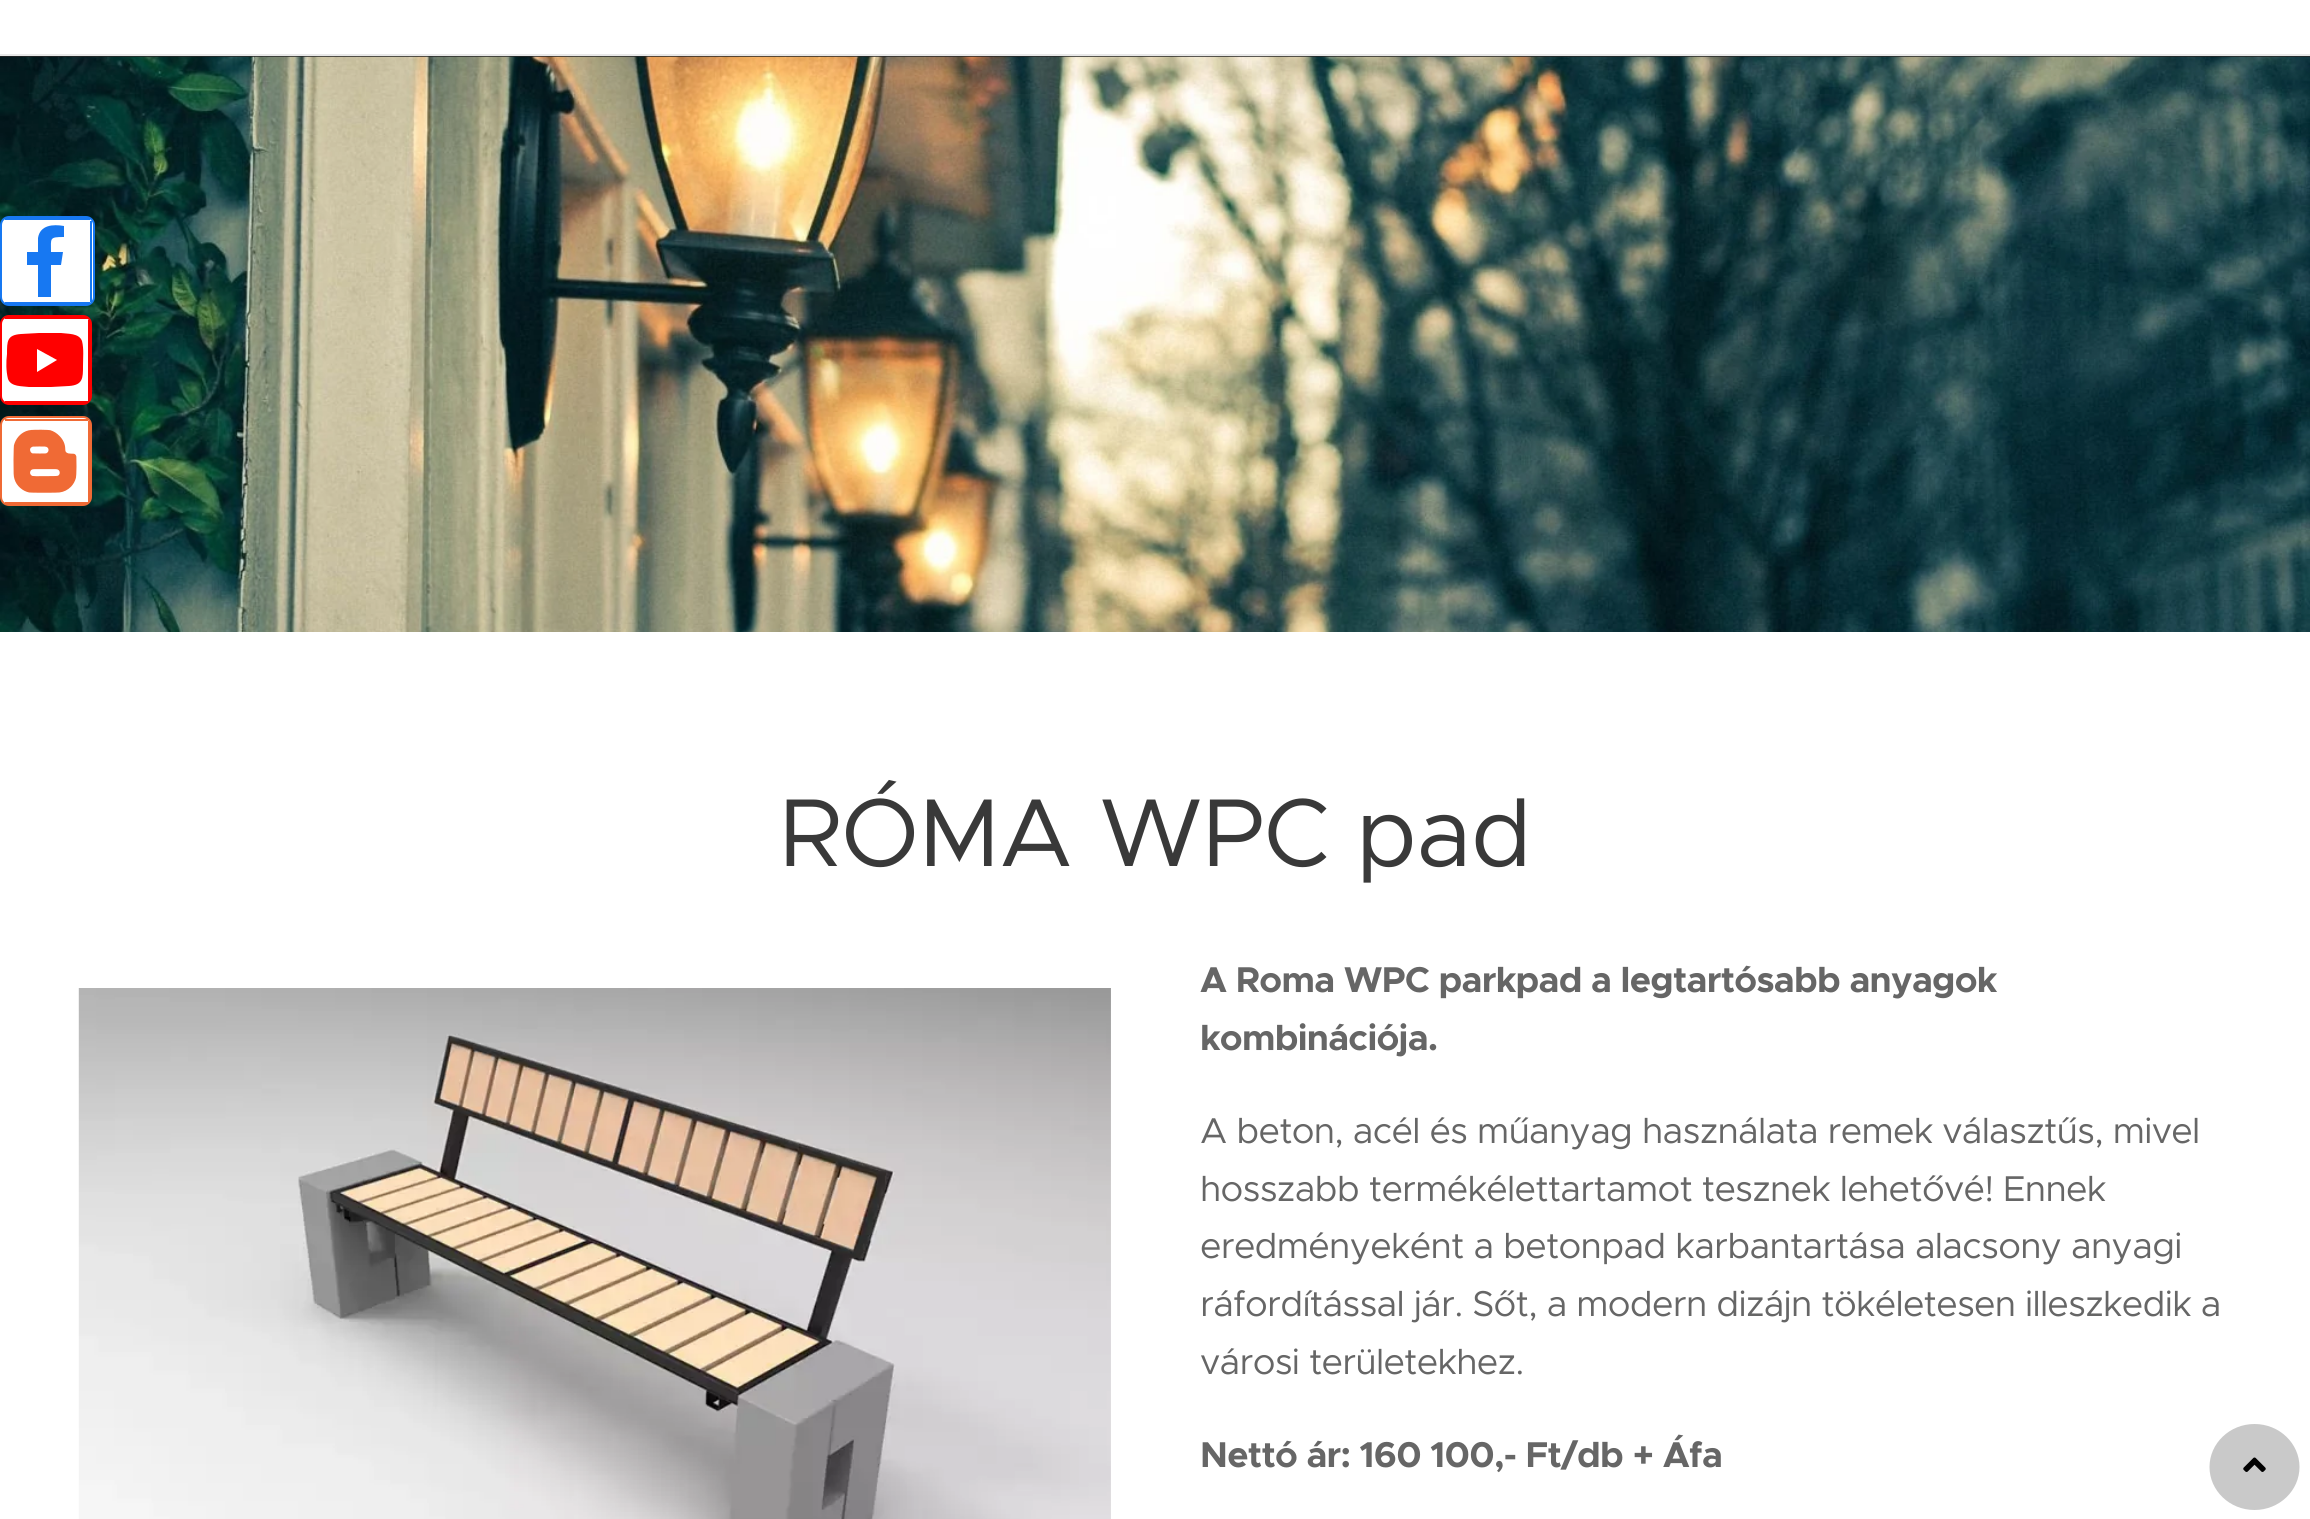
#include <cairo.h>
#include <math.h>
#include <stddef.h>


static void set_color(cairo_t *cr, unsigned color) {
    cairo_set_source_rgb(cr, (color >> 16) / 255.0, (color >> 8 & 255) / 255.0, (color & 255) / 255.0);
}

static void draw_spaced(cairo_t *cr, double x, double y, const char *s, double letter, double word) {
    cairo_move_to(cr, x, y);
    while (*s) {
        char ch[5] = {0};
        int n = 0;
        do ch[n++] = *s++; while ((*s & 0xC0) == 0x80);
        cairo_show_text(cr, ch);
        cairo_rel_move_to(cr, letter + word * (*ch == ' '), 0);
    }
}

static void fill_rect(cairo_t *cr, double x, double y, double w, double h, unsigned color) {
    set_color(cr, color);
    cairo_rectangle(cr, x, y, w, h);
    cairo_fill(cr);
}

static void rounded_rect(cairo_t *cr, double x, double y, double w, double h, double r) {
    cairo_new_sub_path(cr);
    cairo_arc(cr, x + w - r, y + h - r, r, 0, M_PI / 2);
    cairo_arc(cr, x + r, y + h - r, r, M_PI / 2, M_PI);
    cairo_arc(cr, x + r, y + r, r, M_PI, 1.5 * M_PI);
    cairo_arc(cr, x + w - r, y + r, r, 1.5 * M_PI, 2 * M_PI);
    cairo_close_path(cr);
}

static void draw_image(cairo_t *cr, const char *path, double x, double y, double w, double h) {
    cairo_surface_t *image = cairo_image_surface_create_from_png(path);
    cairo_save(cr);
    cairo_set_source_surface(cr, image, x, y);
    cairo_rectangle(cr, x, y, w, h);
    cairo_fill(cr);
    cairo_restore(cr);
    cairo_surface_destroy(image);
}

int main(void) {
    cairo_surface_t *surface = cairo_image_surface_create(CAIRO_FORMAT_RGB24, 2310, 1519);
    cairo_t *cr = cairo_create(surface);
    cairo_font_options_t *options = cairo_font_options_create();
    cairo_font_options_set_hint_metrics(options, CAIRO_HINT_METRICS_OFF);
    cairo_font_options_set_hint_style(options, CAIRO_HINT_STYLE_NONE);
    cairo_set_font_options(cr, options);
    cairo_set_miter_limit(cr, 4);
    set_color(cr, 0xFFFFFF);
    cairo_paint(cr);
    fill_rect(cr, 0, 56, 2310, 1, 0x272727);
    draw_image(cr, "assets/img2.png", 0, 56, 2310, 576);
    set_color(cr, 0xFFFFFF);
    rounded_rect(cr, 1, 217, 93, 88, 8);
    cairo_fill_preserve(cr);
    set_color(cr, 0x1778F2);
    cairo_stroke(cr);
    fill_rect(cr, 5, 218, 85, 2, 0x1778F2);
    fill_rect(cr, 90, 221, 2, 81, 0x1778F2);
    fill_rect(cr, 5, 302, 85, 2, 0x1778F2);
    cairo_new_path(cr);
    cairo_move_to(cr, 38, 297);
    cairo_line_to(cr, 38, 265);
    cairo_line_to(cr, 27, 265);
    cairo_line_to(cr, 27, 252);
    cairo_line_to(cr, 38, 252);
    cairo_line_to(cr, 38, 238);
    cairo_curve_to(cr, 40, 225, 53, 224, 64, 226);
    cairo_line_to(cr, 64, 237);
    cairo_curve_to(cr, 49, 237, 51, 238, 51, 252);
    cairo_line_to(cr, 63, 252);
    cairo_line_to(cr, 61, 265);
    cairo_line_to(cr, 51, 265);
    cairo_line_to(cr, 51, 297);
    cairo_close_path(cr);
    cairo_fill(cr);
    set_color(cr, 0xFFFFFF);
    rounded_rect(cr, 1, 316, 90, 88, 8);
    cairo_fill_preserve(cr);
    set_color(cr, 0xFF0000);
    cairo_stroke(cr);
    fill_rect(cr, 5, 317, 83, 2, 0xFF0000);
    fill_rect(cr, 88, 320, 2, 81, 0xFF0000);
    fill_rect(cr, 5, 401, 83, 2, 0xFF0000);
    cairo_new_path(cr);
    cairo_move_to(cr, 82, 341);
    cairo_curve_to(cr, 79, 333, 68, 334, 61, 333);
    cairo_line_to(cr, 39, 333);
    cairo_line_to(cr, 21, 334);
    cairo_curve_to(cr, 7, 335, 7, 341, 7, 354);
    cairo_curve_to(cr, 6, 362, 6, 371, 8, 379);
    cairo_curve_to(cr, 11, 387, 22, 386, 29, 387);
    cairo_line_to(cr, 51, 387);
    cairo_line_to(cr, 69, 386);
    cairo_curve_to(cr, 83, 385, 83, 378, 83, 366);
    cairo_curve_to(cr, 83, 358, 84, 349, 82, 341);
    cairo_close_path(cr);
    cairo_move_to(cr, 37, 372);
    cairo_line_to(cr, 37, 349);
    cairo_line_to(cr, 57, 360);
    cairo_close_path(cr);
    cairo_fill(cr);
    set_color(cr, 0xFFFFFF);
    rounded_rect(cr, 1, 417, 90, 88, 8);
    cairo_fill_preserve(cr);
    set_color(cr, 0xF06A35);
    cairo_stroke(cr);
    fill_rect(cr, 5, 419, 83, 2, 0xF06A35);
    fill_rect(cr, 88, 421, 2, 81, 0xF06A35);
    fill_rect(cr, 5, 502, 83, 2, 0xF06A35);
    draw_image(cr, "assets/img1.png", 13, 429, 64, 64);
    fill_rect(cr, 0, 54, 2310, 2, 0xE8E8E8);
    cairo_select_font_face(cr, "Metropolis", CAIRO_FONT_SLANT_NORMAL, CAIRO_FONT_WEIGHT_NORMAL);
    cairo_set_font_size(cr, 96.75);
    set_color(cr, 0x393939);
    draw_spaced(cr, 779, 866, "RÓMA WPC pad", -1, 0);
    draw_image(cr, "assets/img3.png", 78, 988, 1033, 531);
    cairo_select_font_face(cr, "Metropolis", CAIRO_FONT_SLANT_NORMAL, CAIRO_FONT_WEIGHT_BOLD);
    cairo_set_font_size(cr, 36);
    set_color(cr, 0x666666);
    draw_spaced(cr, 1200, 992, "A Roma WPC parkpad a legtartósabb anyagok", -0.72, 0);
    draw_spaced(cr, 1200, 1050, "kombinációja.", -0.72, 0);
    cairo_select_font_face(cr, "Metropolis", CAIRO_FONT_SLANT_NORMAL, CAIRO_FONT_WEIGHT_NORMAL);
    draw_spaced(cr, 1200, 1143, "A beton, acél és műanyag használata remek választűs, mivel", -0.72, 0);
    draw_spaced(cr, 1200, 1201, "hosszabb termékélettartamot tesznek lehetővé! Ennek", -0.72, 0);
    draw_spaced(cr, 1200, 1258, "eredményeként a betonpad karbantartása alacsony anyagi", -0.72, 0);
    draw_spaced(cr, 1200, 1316, "ráfordítással jár. Sőt, a modern dizájn tökéletesen illeszkedik a", -0.72, 0);
    draw_spaced(cr, 1200, 1374, "városi területekhez.", -0.72, 0);
    cairo_select_font_face(cr, "Metropolis", CAIRO_FONT_SLANT_NORMAL, CAIRO_FONT_WEIGHT_BOLD);
    draw_spaced(cr, 1200, 1467, "Nettó ár: 160 100,- Ft/db + Áfa", -0.72, 0);
    set_color(cr, 0xC9C9C9);
    cairo_new_path(cr);
    cairo_move_to(cr, 2254.5, 1424);
    cairo_curve_to(cr, 2279.5, 1424, 2299.5, 1443.5, 2299.5, 1467);
    cairo_curve_to(cr, 2299.5, 1490.5, 2279.5, 1510, 2254.5, 1510);
    cairo_curve_to(cr, 2229.5, 1510, 2209.5, 1490.5, 2209.5, 1467);
    cairo_curve_to(cr, 2209.5, 1443.5, 2229.5, 1424, 2254.5, 1424);
    cairo_close_path(cr);
    cairo_fill(cr);
    draw_image(cr, "assets/img4.png", 2243, 1457, 23, 15);
    cairo_surface_write_to_png(surface, "output.png");
    cairo_font_options_destroy(options);
    cairo_destroy(cr);
    cairo_surface_destroy(surface);
    return 0;
}
